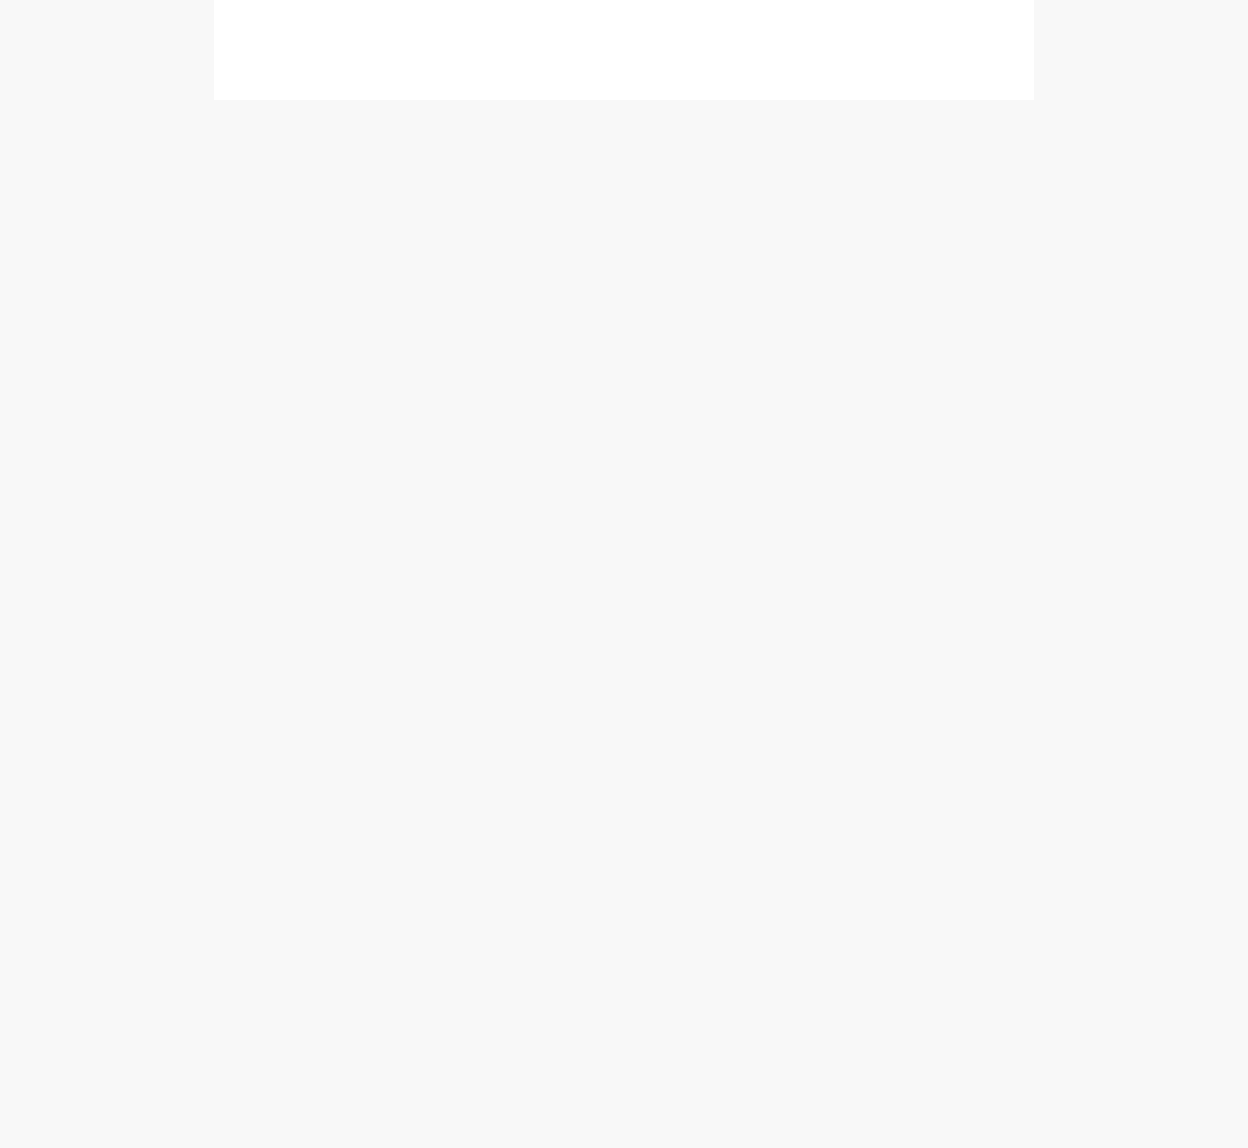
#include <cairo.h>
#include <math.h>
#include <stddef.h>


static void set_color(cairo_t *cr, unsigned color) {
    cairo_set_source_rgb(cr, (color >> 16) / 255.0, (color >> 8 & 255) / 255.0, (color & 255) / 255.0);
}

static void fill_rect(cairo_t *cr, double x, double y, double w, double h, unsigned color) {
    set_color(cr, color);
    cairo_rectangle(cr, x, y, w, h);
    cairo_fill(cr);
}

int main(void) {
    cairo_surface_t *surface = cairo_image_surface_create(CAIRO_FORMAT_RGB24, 1248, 1148);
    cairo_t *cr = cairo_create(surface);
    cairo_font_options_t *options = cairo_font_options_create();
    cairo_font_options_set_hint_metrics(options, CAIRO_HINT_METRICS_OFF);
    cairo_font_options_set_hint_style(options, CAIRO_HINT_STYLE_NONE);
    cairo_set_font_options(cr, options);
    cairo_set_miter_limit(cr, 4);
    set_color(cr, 0xF8F8F8);
    cairo_paint(cr);
    fill_rect(cr, 214, 0, 820, 100, 0xFFFFFF);
    cairo_surface_write_to_png(surface, "output.png");
    cairo_font_options_destroy(options);
    cairo_destroy(cr);
    cairo_surface_destroy(surface);
    return 0;
}
